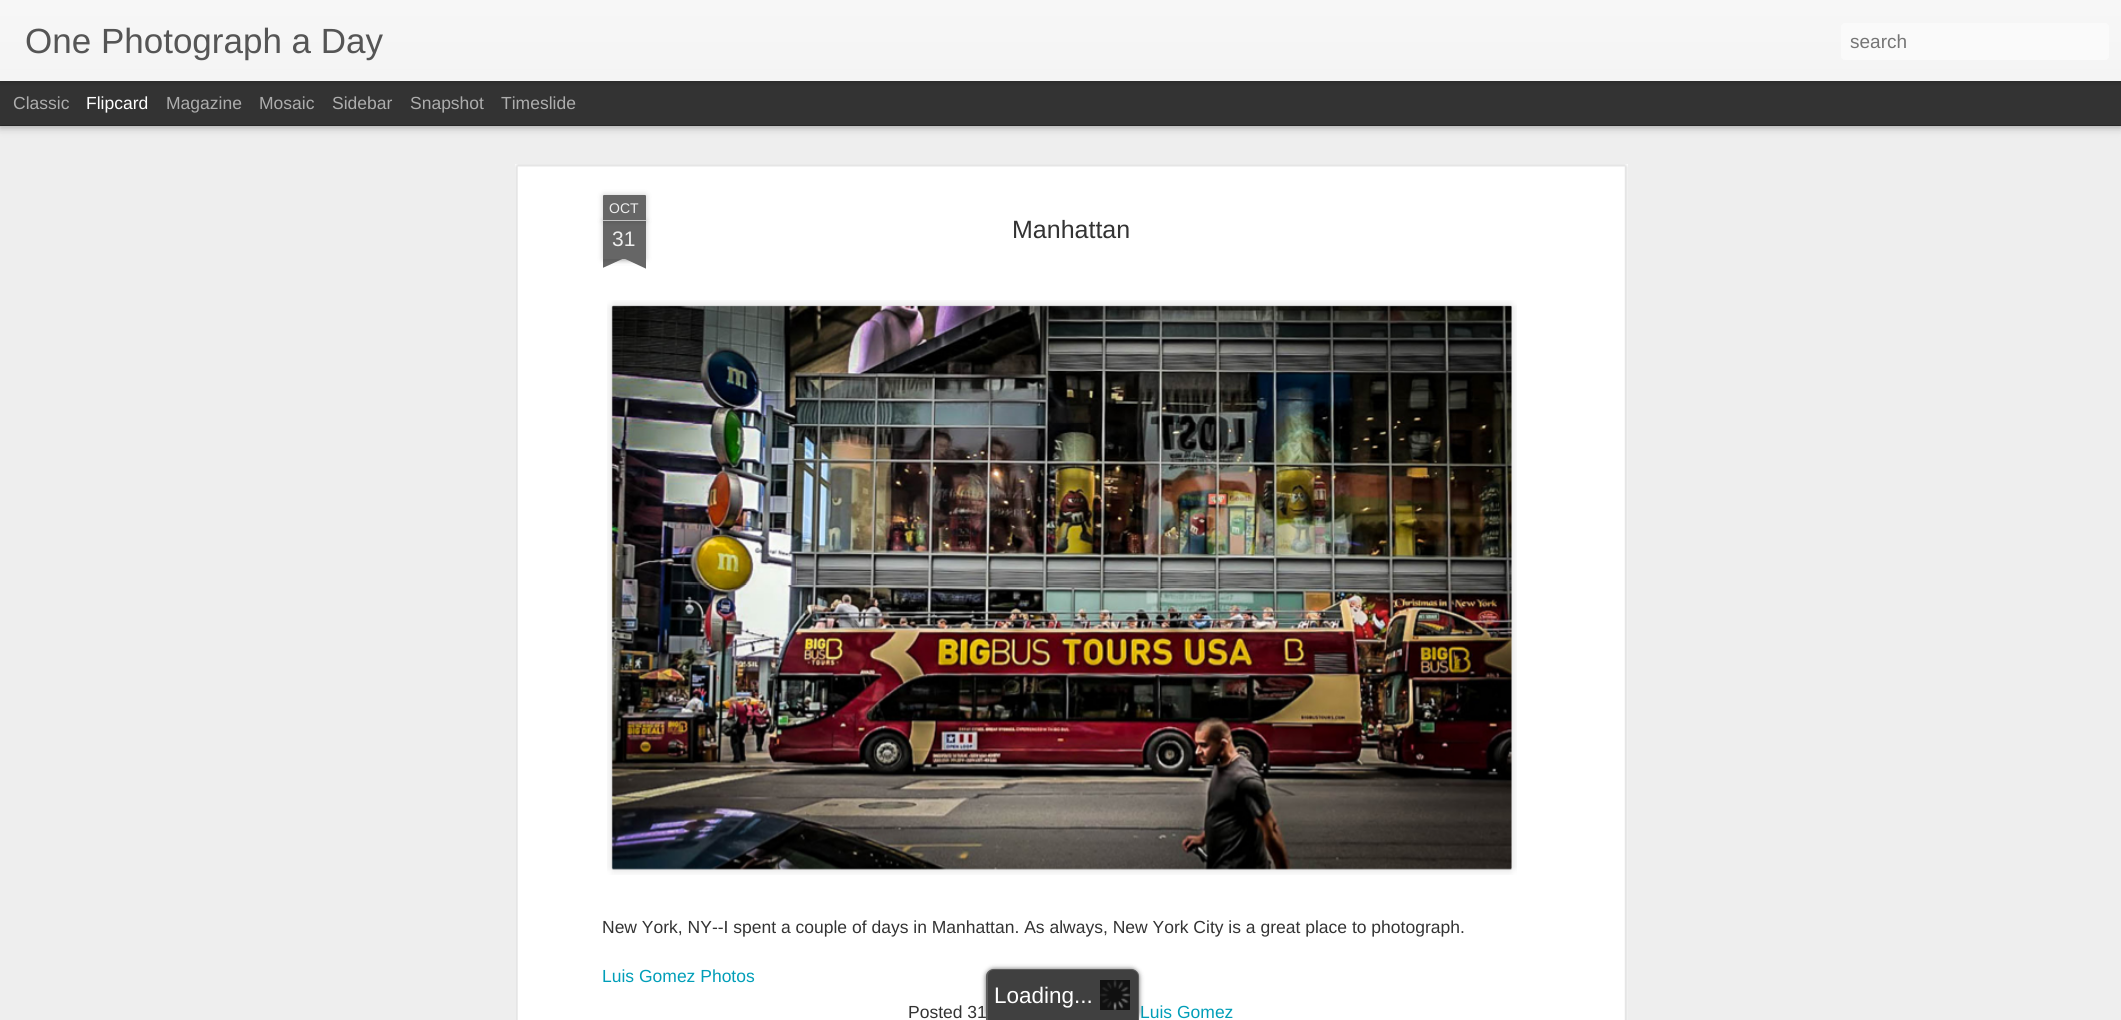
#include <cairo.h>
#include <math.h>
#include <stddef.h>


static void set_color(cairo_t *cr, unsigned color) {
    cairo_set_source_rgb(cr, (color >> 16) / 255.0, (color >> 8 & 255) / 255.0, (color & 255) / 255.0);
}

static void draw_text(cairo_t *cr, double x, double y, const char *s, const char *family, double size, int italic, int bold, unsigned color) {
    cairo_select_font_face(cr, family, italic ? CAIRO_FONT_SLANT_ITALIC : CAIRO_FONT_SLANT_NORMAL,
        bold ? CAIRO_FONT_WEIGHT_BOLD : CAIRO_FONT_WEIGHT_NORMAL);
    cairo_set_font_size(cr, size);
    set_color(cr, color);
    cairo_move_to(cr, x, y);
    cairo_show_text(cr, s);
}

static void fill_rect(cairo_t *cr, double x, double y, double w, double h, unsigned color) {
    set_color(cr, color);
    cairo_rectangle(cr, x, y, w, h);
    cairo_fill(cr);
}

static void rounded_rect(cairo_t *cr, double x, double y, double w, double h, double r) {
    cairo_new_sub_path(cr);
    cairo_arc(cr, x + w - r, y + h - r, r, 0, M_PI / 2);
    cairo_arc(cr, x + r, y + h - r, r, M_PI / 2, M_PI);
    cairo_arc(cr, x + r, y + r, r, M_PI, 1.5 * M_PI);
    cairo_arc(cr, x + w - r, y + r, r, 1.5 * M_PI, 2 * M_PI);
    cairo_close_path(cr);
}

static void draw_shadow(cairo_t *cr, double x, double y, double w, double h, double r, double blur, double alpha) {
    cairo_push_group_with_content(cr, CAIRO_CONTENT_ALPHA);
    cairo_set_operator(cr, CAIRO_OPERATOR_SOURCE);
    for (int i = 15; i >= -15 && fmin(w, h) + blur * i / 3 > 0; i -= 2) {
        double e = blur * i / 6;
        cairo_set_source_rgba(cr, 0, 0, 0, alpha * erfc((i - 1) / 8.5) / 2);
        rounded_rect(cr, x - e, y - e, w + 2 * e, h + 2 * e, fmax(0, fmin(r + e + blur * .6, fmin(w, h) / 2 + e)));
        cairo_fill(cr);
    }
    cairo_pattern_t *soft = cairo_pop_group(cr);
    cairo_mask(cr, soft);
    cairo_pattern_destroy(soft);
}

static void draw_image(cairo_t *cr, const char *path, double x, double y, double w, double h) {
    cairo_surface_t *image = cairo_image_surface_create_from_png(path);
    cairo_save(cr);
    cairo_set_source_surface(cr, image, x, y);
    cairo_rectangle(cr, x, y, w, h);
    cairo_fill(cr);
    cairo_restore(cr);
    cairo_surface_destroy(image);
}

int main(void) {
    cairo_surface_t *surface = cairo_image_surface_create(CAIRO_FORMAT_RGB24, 2121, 1020);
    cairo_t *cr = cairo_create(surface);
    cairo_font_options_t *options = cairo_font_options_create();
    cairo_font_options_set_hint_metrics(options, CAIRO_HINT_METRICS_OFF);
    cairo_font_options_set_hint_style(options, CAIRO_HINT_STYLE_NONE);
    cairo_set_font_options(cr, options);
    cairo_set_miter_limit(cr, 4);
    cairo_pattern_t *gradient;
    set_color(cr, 0x333333);
    cairo_paint(cr);
    fill_rect(cr, 0, 126, 2121, 894, 0xEEEEEE);
    set_color(cr, 0x000000);
    draw_shadow(cr, 0, 81, 2121, 44, 0, 5, 0.5);
    fill_rect(cr, 0, 81, 2121, 44, 0x333333);
    set_color(cr, 0x000000);
    draw_shadow(cr, 0, 0, 2121, 81, 0, 3, 0.3);
    gradient = cairo_pattern_create_linear(0, 0, 0, 81);
    cairo_pattern_add_color_stop_rgba(gradient, 0, 0.969, 0.969, 0.969, 1);
    cairo_pattern_add_color_stop_rgba(gradient, 1, 0.957, 0.957, 0.957, 1);
    cairo_set_source(cr, gradient);
    cairo_pattern_destroy(gradient);
    cairo_rectangle(cr, 0, 0, 2121, 81);
    cairo_fill(cr);
    draw_text(cr, 25, 53, "One Photograph a Day", "Liberation Sans", 35, 0, 0, 0x555555);
    set_color(cr, 0xFAFAFA);
    rounded_rect(cr, 1841, 23, 268, 37, 4);
    cairo_fill(cr);
    draw_text(cr, 1850, 48, "search", "Liberation Sans", 19, 0, 0, 0x757575);
    draw_text(cr, 13, 109, "Classic", "Liberation Sans", 17.5, 0, 0, 0xADADAD);
    draw_text(cr, 86, 109, "Flipcard", "Liberation Sans", 17.5, 0, 0, 0xFFFFFF);
    draw_text(cr, 166, 109, "Magazine", "Liberation Sans", 17.5, 0, 0, 0xADADAD);
    draw_text(cr, 259, 109, "Mosaic", "Liberation Sans", 17.5, 0, 0, 0xADADAD);
    draw_text(cr, 332, 109, "Sidebar", "Liberation Sans", 17.5, 0, 0, 0xADADAD);
    draw_text(cr, 410, 109, "Snapshot", "Liberation Sans", 17.5, 0, 0, 0xADADAD);
    draw_text(cr, 501, 109, "Timeslide", "Liberation Sans", 17.5, 0, 0, 0xADADAD);
    fill_rect(cr, 515, 164, 1113, 856, 0xFFFFFF);
    draw_image(cr, "assets/img1.png", 515, 164, 1113, 856);
    set_color(cr, 0x000000);
    draw_shadow(cr, 603, 221, 43, 38, 0, 3, 0.2);
    fill_rect(cr, 603, 221, 43, 38, 0x666666);
    set_color(cr, 0x000000);
    draw_shadow(cr, 603, 195, 43, 26, 1, 3, 0.2);
    set_color(cr, 0x666666);
    cairo_new_path(cr);
    cairo_move_to(cr, 604, 195);
    cairo_line_to(cr, 645, 195);
    cairo_curve_to(cr, 645.5, 195, 646, 195.5, 646, 196);
    cairo_line_to(cr, 646, 221);
    cairo_line_to(cr, 603, 221);
    cairo_line_to(cr, 603, 196);
    cairo_curve_to(cr, 603, 195.5, 603.5, 195, 604, 195);
    cairo_close_path(cr);
    cairo_fill(cr);
    fill_rect(cr, 603, 220, 43, 1, 0xC2C2C2);
    draw_text(cr, 609, 213, "OCT", "Liberation Sans", 14, 0, 0, 0xEEEEEE);
    draw_text(cr, 612, 246, "31", "Liberation Sans", 21, 0, 0, 0xEEEEEE);
    cairo_save(cr);
    cairo_rectangle(cr, 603, 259, 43, 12);
    cairo_clip(cr);
    set_color(cr, 0x000000);
    draw_shadow(cr, 591, 246, 63, 13, 0, 3, 0.2);
    cairo_restore(cr);
    cairo_save(cr);
    cairo_rectangle(cr, 603, 259, 43, 12);
    cairo_clip(cr);
    set_color(cr, 0x666666);
    cairo_new_path(cr);
    cairo_move_to(cr, 591, 260);
    cairo_line_to(cr, 648, 234);
    cairo_line_to(cr, 653, 245);
    cairo_line_to(cr, 596, 271);
    cairo_close_path(cr);
    cairo_fill(cr);
    cairo_restore(cr);
    cairo_save(cr);
    cairo_rectangle(cr, 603, 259, 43, 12);
    cairo_clip(cr);
    set_color(cr, 0x000000);
    draw_shadow(cr, 595, 246, 63, 13, 0, 3, 0.2);
    cairo_restore(cr);
    cairo_save(cr);
    cairo_rectangle(cr, 603, 259, 43, 12);
    cairo_clip(cr);
    set_color(cr, 0x666666);
    cairo_new_path(cr);
    cairo_move_to(cr, 600, 234);
    cairo_line_to(cr, 657, 260);
    cairo_line_to(cr, 651, 271);
    cairo_line_to(cr, 595, 245);
    cairo_close_path(cr);
    cairo_fill(cr);
    cairo_restore(cr);
    draw_text(cr, 1012, 238, "Manhattan", "Liberation Sans", 25, 0, 0, 0x333333);
    draw_image(cr, "assets/img2.png", 607, 300, 910, 575);
    draw_image(cr, "assets/img3.png", 611, 305, 901, 565);
    draw_text(cr, 602, 933, "New York, NY--I spent a couple of days in Manhattan. As always, New York City is a great place to photograph.", "Liberation Sans", 17.5, 0, 0, 0x333333);
    draw_text(cr, 602, 982, "Luis Gomez Photos", "Liberation Sans", 17.5, 0, 0, 0x009EB8);
    draw_text(cr, 908, 1018, "Posted 31", "Liberation Sans", 17.5, 0, 0, 0x333333);
    draw_text(cr, 1140, 1018, "Luis Gomez", "Liberation Sans", 17.5, 0, 0, 0x009EB8);
    cairo_save(cr);
    cairo_set_fill_rule(cr, CAIRO_FILL_RULE_EVEN_ODD);
    cairo_new_path(cr);
    cairo_move_to(cr, 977, 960);
    cairo_line_to(cr, 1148, 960);
    cairo_line_to(cr, 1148, 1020);
    cairo_line_to(cr, 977, 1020);
    cairo_close_path(cr);
    cairo_move_to(cr, 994, 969);
    cairo_line_to(cr, 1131, 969);
    cairo_curve_to(cr, 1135.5, 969, 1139, 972.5, 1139, 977);
    cairo_line_to(cr, 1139, 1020);
    cairo_line_to(cr, 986, 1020);
    cairo_line_to(cr, 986, 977);
    cairo_curve_to(cr, 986, 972.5, 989.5, 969, 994, 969);
    cairo_close_path(cr);
    cairo_clip(cr);
    set_color(cr, 0x333333);
    draw_shadow(cr, 986, 969, 153, 51, 8, 2.5, 0.75);
    cairo_restore(cr);
    cairo_set_source_rgba(cr, 0, 0, 0, 0.75);
    cairo_new_path(cr);
    cairo_move_to(cr, 994, 969);
    cairo_line_to(cr, 1131, 969);
    cairo_curve_to(cr, 1135.5, 969, 1139, 972.5, 1139, 977);
    cairo_line_to(cr, 1139, 1020);
    cairo_line_to(cr, 986, 1020);
    cairo_line_to(cr, 986, 977);
    cairo_curve_to(cr, 986, 972.5, 989.5, 969, 994, 969);
    cairo_close_path(cr);
    cairo_fill(cr);
    cairo_set_source_rgba(cr, 0.4, 0.4, 0.4, 0.75);
    cairo_set_fill_rule(cr, CAIRO_FILL_RULE_EVEN_ODD);
    cairo_new_path(cr);
    cairo_move_to(cr, 994, 969);
    cairo_line_to(cr, 1131, 969);
    cairo_curve_to(cr, 1135, 969, 1139, 972, 1139, 976);
    cairo_line_to(cr, 1139, 1020);
    cairo_line_to(cr, 986, 1020);
    cairo_line_to(cr, 986, 976);
    cairo_curve_to(cr, 986, 972, 990, 969, 994, 969);
    cairo_close_path(cr);
    cairo_move_to(cr, 994, 970);
    cairo_line_to(cr, 1131, 970);
    cairo_curve_to(cr, 1135, 970, 1138, 973, 1138, 976);
    cairo_line_to(cr, 1138, 1020);
    cairo_line_to(cr, 988, 1020);
    cairo_line_to(cr, 988, 976);
    cairo_curve_to(cr, 988, 973, 990, 970, 994, 970);
    cairo_close_path(cr);
    cairo_fill(cr);
    draw_image(cr, "assets/img4.png", 1100, 980, 30, 30);
    draw_text(cr, 994, 1003, "Loading...", "Liberation Sans", 22.5, 0, 0, 0xFFFFFF);
    cairo_surface_write_to_png(surface, "output.png");
    cairo_font_options_destroy(options);
    cairo_destroy(cr);
    cairo_surface_destroy(surface);
    return 0;
}
